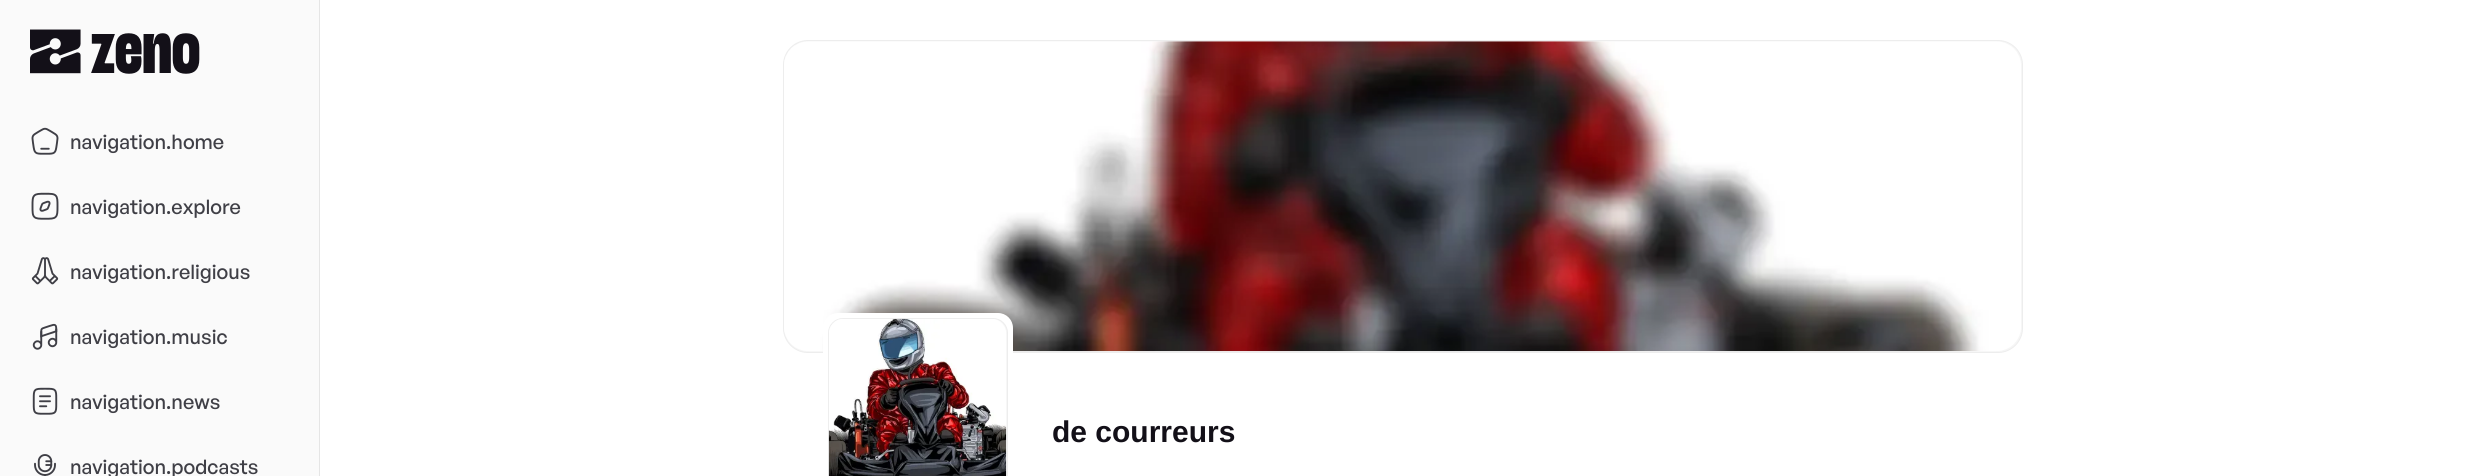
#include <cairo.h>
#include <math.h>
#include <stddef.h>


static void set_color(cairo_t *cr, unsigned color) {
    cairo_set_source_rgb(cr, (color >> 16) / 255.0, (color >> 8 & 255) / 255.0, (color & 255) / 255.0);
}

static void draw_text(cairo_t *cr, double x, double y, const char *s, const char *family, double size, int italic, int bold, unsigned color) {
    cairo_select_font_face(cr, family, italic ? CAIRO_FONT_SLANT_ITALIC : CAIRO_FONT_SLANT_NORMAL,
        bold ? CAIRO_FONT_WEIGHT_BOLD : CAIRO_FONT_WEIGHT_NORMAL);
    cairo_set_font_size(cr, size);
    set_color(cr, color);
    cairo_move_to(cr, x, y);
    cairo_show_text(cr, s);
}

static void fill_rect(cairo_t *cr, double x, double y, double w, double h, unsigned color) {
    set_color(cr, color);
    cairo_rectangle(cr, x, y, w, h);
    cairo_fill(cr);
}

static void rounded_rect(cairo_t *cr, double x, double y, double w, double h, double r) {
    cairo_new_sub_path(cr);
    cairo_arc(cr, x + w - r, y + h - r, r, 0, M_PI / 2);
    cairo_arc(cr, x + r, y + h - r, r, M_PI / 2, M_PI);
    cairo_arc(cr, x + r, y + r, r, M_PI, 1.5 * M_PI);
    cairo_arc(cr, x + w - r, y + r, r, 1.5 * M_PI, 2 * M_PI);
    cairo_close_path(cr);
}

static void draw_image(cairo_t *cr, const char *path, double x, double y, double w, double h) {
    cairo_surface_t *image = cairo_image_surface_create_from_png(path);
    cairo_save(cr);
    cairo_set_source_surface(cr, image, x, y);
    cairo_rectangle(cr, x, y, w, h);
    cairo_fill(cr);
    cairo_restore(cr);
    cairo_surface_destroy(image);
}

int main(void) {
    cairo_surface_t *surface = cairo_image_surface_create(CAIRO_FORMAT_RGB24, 2483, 476);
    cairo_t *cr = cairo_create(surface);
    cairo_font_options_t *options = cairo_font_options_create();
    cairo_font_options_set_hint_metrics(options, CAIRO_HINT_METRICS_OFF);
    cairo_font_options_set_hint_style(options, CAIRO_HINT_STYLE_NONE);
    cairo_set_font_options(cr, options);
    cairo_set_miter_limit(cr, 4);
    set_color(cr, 0xFFFFFF);
    cairo_paint(cr);
    fill_rect(cr, 319, 0, 1, 476, 0xE5E5E5);
    fill_rect(cr, 0, 0, 319, 476, 0xFAFAFA);
    draw_image(cr, "assets/img1.png", 30, 29, 51, 45);
    draw_text(cr, 91, 73, "zeno", "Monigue", 75, 0, 0, 0x131018);
    draw_image(cr, "assets/img2.png", 31, 127, 28, 28);
    draw_text(cr, 70, 149, "navigation.home", "General Sans Medium", 20, 0, 0, 0x3F3F46);
    draw_image(cr, "assets/img3.png", 31, 192, 28, 28);
    draw_text(cr, 70, 214, "navigation.explore", "General Sans Medium", 20, 0, 0, 0x3F3F46);
    draw_image(cr, "assets/img4.png", 31, 257, 28, 28);
    draw_text(cr, 70, 279, "navigation.religious", "General Sans Medium", 20, 0, 0, 0x3F3F46);
    draw_image(cr, "assets/img5.png", 32, 323, 26, 27);
    draw_text(cr, 70, 344, "navigation.music", "General Sans Medium", 20, 0, 0, 0x3F3F46);
    draw_image(cr, "assets/img6.png", 32, 387, 26, 28);
    draw_text(cr, 70, 409, "navigation.news", "General Sans Medium", 20, 0, 0, 0x3F3F46);
    draw_image(cr, "assets/img7.png", 34, 454, 22, 22);
    draw_text(cr, 70, 474, "navigation.podcasts", "General Sans Medium", 20, 0, 0, 0x3F3F46);
    set_color(cr, 0xF6F6F6);
    rounded_rect(cr, 783.5, 40.5, 1239, 312, 24.5);
    cairo_fill_preserve(cr);
    set_color(cr, 0xEDEDED);
    cairo_set_line_width(cr, 1);
    cairo_stroke(cr);
    draw_image(cr, "assets/img8.png", 784, 41, 1237, 311);
    set_color(cr, 0xFFFFFF);
    rounded_rect(cr, 823, 313, 190, 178, 15);
    cairo_fill(cr);
    set_color(cr, 0xF6F6F6);
    rounded_rect(cr, 828.5, 318.5, 179, 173, 14.5);
    cairo_fill_preserve(cr);
    set_color(cr, 0xEDEDED);
    cairo_stroke(cr);
    draw_image(cr, "assets/img9.png", 828, 318, 179, 158);
    draw_text(cr, 1052, 442, "de courreurs", "Liberation Sans", 30, 0, 1, 0x131018);
    cairo_surface_write_to_png(surface, "output.png");
    cairo_font_options_destroy(options);
    cairo_destroy(cr);
    cairo_surface_destroy(surface);
    return 0;
}
